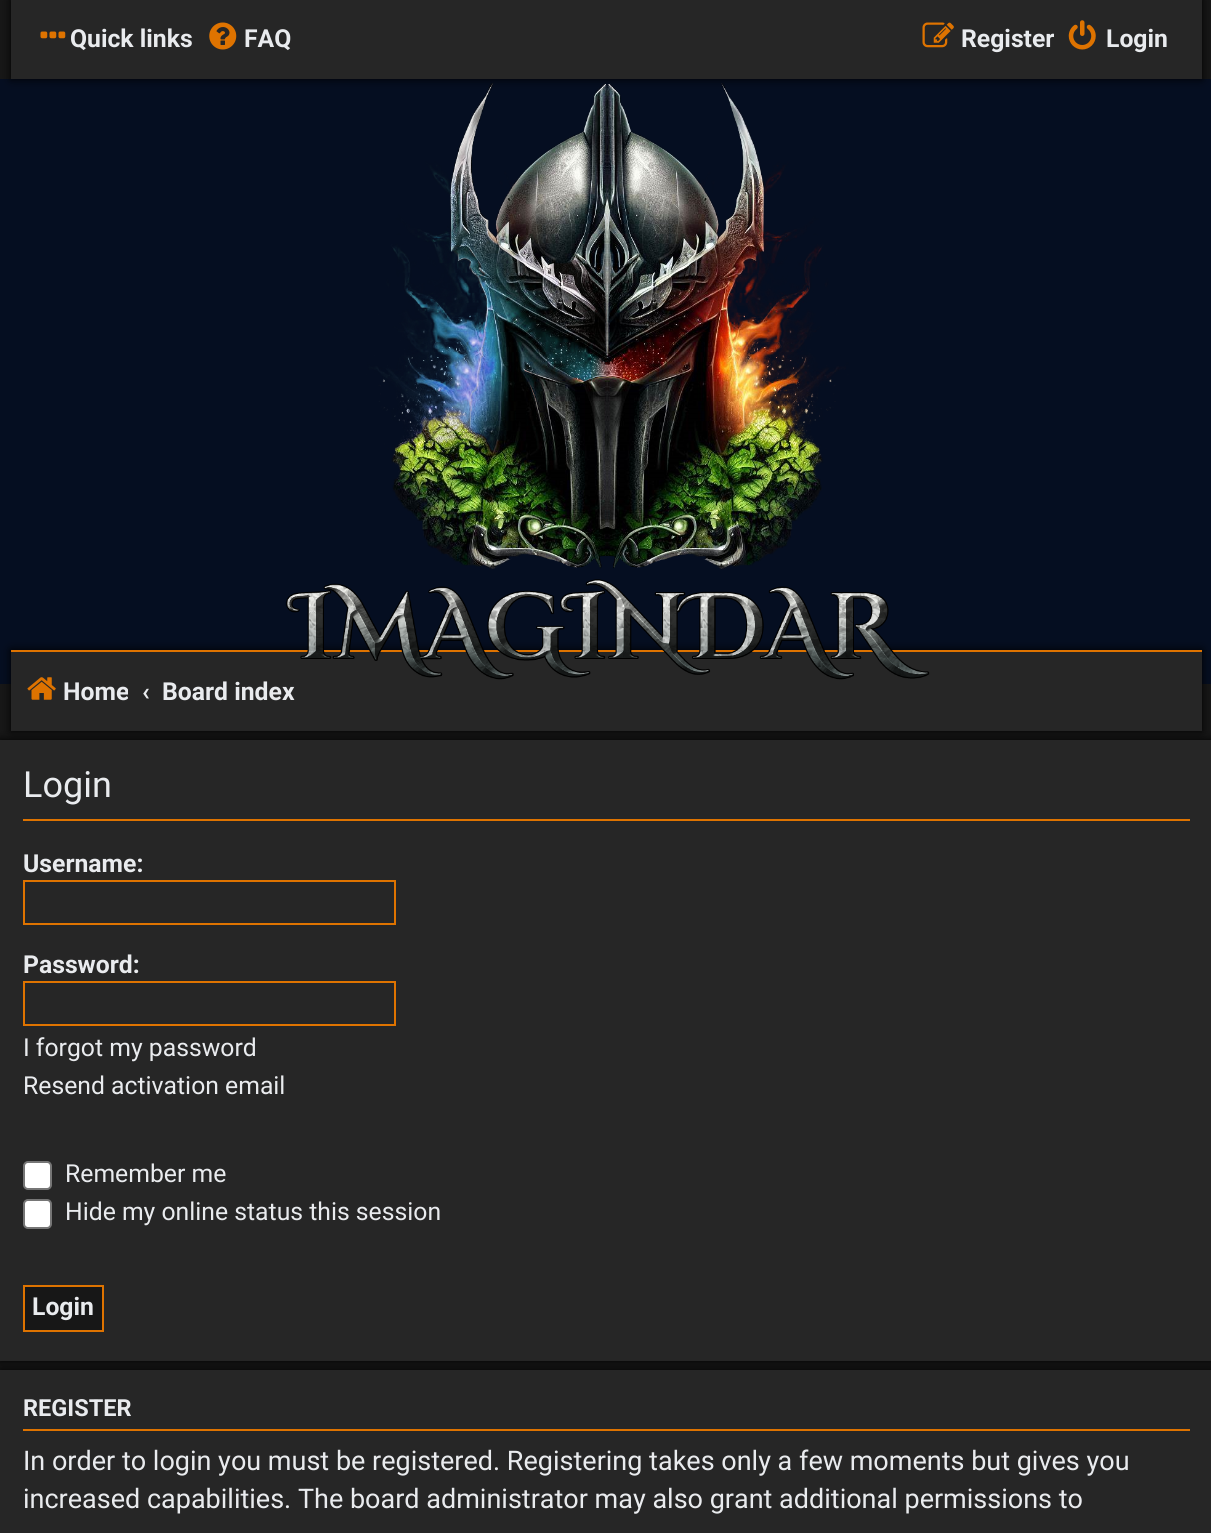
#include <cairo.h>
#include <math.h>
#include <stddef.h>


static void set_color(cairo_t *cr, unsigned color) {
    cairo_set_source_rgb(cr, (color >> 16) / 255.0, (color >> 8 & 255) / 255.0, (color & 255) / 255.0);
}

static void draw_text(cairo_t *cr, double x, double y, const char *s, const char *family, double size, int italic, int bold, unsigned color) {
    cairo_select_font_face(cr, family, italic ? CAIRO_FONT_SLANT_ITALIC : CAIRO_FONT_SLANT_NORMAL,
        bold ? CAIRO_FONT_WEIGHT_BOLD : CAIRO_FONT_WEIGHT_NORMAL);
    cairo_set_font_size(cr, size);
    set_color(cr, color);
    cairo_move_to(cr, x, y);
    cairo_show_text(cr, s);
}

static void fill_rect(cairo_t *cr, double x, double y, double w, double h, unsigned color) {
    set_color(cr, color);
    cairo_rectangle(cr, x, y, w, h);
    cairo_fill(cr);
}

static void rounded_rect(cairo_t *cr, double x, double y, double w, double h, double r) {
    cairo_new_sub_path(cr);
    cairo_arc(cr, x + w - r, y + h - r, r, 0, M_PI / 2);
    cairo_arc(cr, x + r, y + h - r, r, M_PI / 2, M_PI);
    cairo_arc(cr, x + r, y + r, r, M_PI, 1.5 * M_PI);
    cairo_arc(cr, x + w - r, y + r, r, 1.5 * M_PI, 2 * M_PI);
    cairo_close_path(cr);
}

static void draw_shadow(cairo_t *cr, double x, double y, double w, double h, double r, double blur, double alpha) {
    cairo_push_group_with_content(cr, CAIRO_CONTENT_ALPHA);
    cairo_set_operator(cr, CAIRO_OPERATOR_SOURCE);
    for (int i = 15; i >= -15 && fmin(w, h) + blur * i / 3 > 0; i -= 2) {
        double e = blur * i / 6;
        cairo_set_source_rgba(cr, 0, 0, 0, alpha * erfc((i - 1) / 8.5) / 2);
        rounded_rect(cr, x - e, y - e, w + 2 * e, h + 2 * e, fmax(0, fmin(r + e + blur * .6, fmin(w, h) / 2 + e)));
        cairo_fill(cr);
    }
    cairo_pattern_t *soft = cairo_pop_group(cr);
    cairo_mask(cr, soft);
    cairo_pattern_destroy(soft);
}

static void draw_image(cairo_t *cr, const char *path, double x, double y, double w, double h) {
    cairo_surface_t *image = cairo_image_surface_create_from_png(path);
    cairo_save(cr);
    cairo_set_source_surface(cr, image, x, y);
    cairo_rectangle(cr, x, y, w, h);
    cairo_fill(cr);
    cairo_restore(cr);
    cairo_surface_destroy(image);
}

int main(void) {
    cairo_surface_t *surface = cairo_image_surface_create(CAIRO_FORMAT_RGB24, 1211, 1533);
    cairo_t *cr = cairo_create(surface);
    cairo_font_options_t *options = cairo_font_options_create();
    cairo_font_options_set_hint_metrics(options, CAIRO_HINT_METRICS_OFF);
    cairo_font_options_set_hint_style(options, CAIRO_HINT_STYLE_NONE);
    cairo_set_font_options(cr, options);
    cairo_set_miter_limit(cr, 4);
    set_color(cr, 0x171717);
    cairo_paint(cr);
    fill_rect(cr, 0, 79, 1211, 605, 0x050E21);
    set_color(cr, 0x000000);
    draw_shadow(cr, 11, 650, 1191, 81, 0, 4.5, 1);
    fill_rect(cr, 11, 652, 1191, 79, 0x262626);
    fill_rect(cr, 11, 650, 1191, 2, 0xDE7300);
    draw_image(cr, "assets/img5.png", 285, 83, 645, 597);
    set_color(cr, 0x000000);
    draw_shadow(cr, 11, 0, 1191, 79, 0, 4.5, 1);
    fill_rect(cr, 11, 0, 1191, 79, 0x262626);
    draw_image(cr, "assets/img1.png", 40, 31, 26, 8);
    draw_text(cr, 70, 47, "Quick links", "Roboto", 24.75, 0, 1, 0xE9EBEE);
    draw_image(cr, "assets/img2.png", 209, 22, 28, 28);
    draw_text(cr, 244, 47, "FAQ", "Roboto", 24.75, 0, 1, 0xE9EBEE);
    draw_image(cr, "assets/img3.png", 922, 22, 32, 26);
    draw_text(cr, 961, 47, "Register", "Roboto", 24.75, 0, 1, 0xE9EBEE);
    draw_image(cr, "assets/img4.png", 1068, 20, 28, 30);
    draw_text(cr, 1106, 47, "Login", "Roboto", 24.75, 0, 1, 0xE9EBEE);
    draw_image(cr, "assets/img6.png", 27, 677, 29, 23);
    cairo_save(cr);
    cairo_rectangle(cr, 23, 666, 105, 54);
    cairo_clip(cr);
    draw_text(cr, 63, 700, "Home", "Roboto", 24.75, 0, 1, 0xE9EBEE);
    cairo_restore(cr);
    draw_text(cr, 142, 700, "‹", "Roboto", 24.75, 0, 1, 0xE9EBEE);
    draw_text(cr, 162, 700, "Board index", "Roboto", 24.75, 0, 1, 0xE9EBEE);
    set_color(cr, 0x000000);
    draw_shadow(cr, 0, 740, 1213, 621, 0, 4.5, 1);
    fill_rect(cr, 0, 740, 1211, 621, 0x262626);
    fill_rect(cr, 23, 819, 1167, 2, 0xDE7300);
    draw_text(cr, 23, 797, "Login", "Roboto", 36, 0, 0, 0xE9EBEE);
    draw_text(cr, 23, 872, "Username:", "Roboto", 24.75, 0, 1, 0xE9EBEE);
    cairo_rectangle(cr, 24, 881, 371, 43);
    set_color(cr, 0xDE7300);
    cairo_stroke(cr);
    draw_text(cr, 23, 973, "Password:", "Roboto", 24.75, 0, 1, 0xE9EBEE);
    cairo_rectangle(cr, 24, 982, 371, 43);
    set_color(cr, 0xDE7300);
    cairo_stroke(cr);
    draw_text(cr, 23, 1056, "I forgot my password", "Roboto", 24.75, 0, 0, 0xE9EBEE);
    draw_text(cr, 23, 1094, "Resend activation email", "Roboto", 24.75, 0, 0, 0xE9EBEE);
    set_color(cr, 0xFFFFFF);
    rounded_rect(cr, 24, 1162, 27, 27, 4);
    cairo_fill_preserve(cr);
    set_color(cr, 0x767676);
    cairo_stroke(cr);
    draw_text(cr, 65, 1182, "Remember me", "Roboto", 24.75, 0, 0, 0xE9EBEE);
    set_color(cr, 0xFFFFFF);
    rounded_rect(cr, 24, 1200, 27, 28, 4);
    cairo_fill_preserve(cr);
    set_color(cr, 0x767676);
    cairo_stroke(cr);
    draw_text(cr, 65, 1220, "Hide my online status this session", "Roboto", 24.75, 0, 0, 0xE9EBEE);
    set_color(cr, 0x171717);
    cairo_rectangle(cr, 24, 1286, 79, 45);
    cairo_fill_preserve(cr);
    set_color(cr, 0xDE7300);
    cairo_stroke(cr);
    draw_text(cr, 32, 1315, "Login", "Roboto", 24.75, 0, 1, 0xE9EBEE);
    set_color(cr, 0x000000);
    draw_shadow(cr, 0, 1370, 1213, 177, 0, 4.5, 1);
    fill_rect(cr, 0, 1370, 1211, 163, 0x262626);
    fill_rect(cr, 23, 1429, 1167, 2, 0xDE7300);
    draw_text(cr, 23, 1416, "REGISTER", "Roboto", 23.5, 0, 1, 0xE9EBEE);
    draw_text(cr, 23, 1470, "In order to login you must be registered. Registering takes only a few moments but gives you", "Roboto", 27, 0, 0, 0xE9EBEE);
    draw_text(cr, 23, 1508, "increased capabilities. The board administrator may also grant additional permissions to", "Roboto", 27, 0, 0, 0xE9EBEE);
    cairo_surface_write_to_png(surface, "output.png");
    cairo_font_options_destroy(options);
    cairo_destroy(cr);
    cairo_surface_destroy(surface);
    return 0;
}
